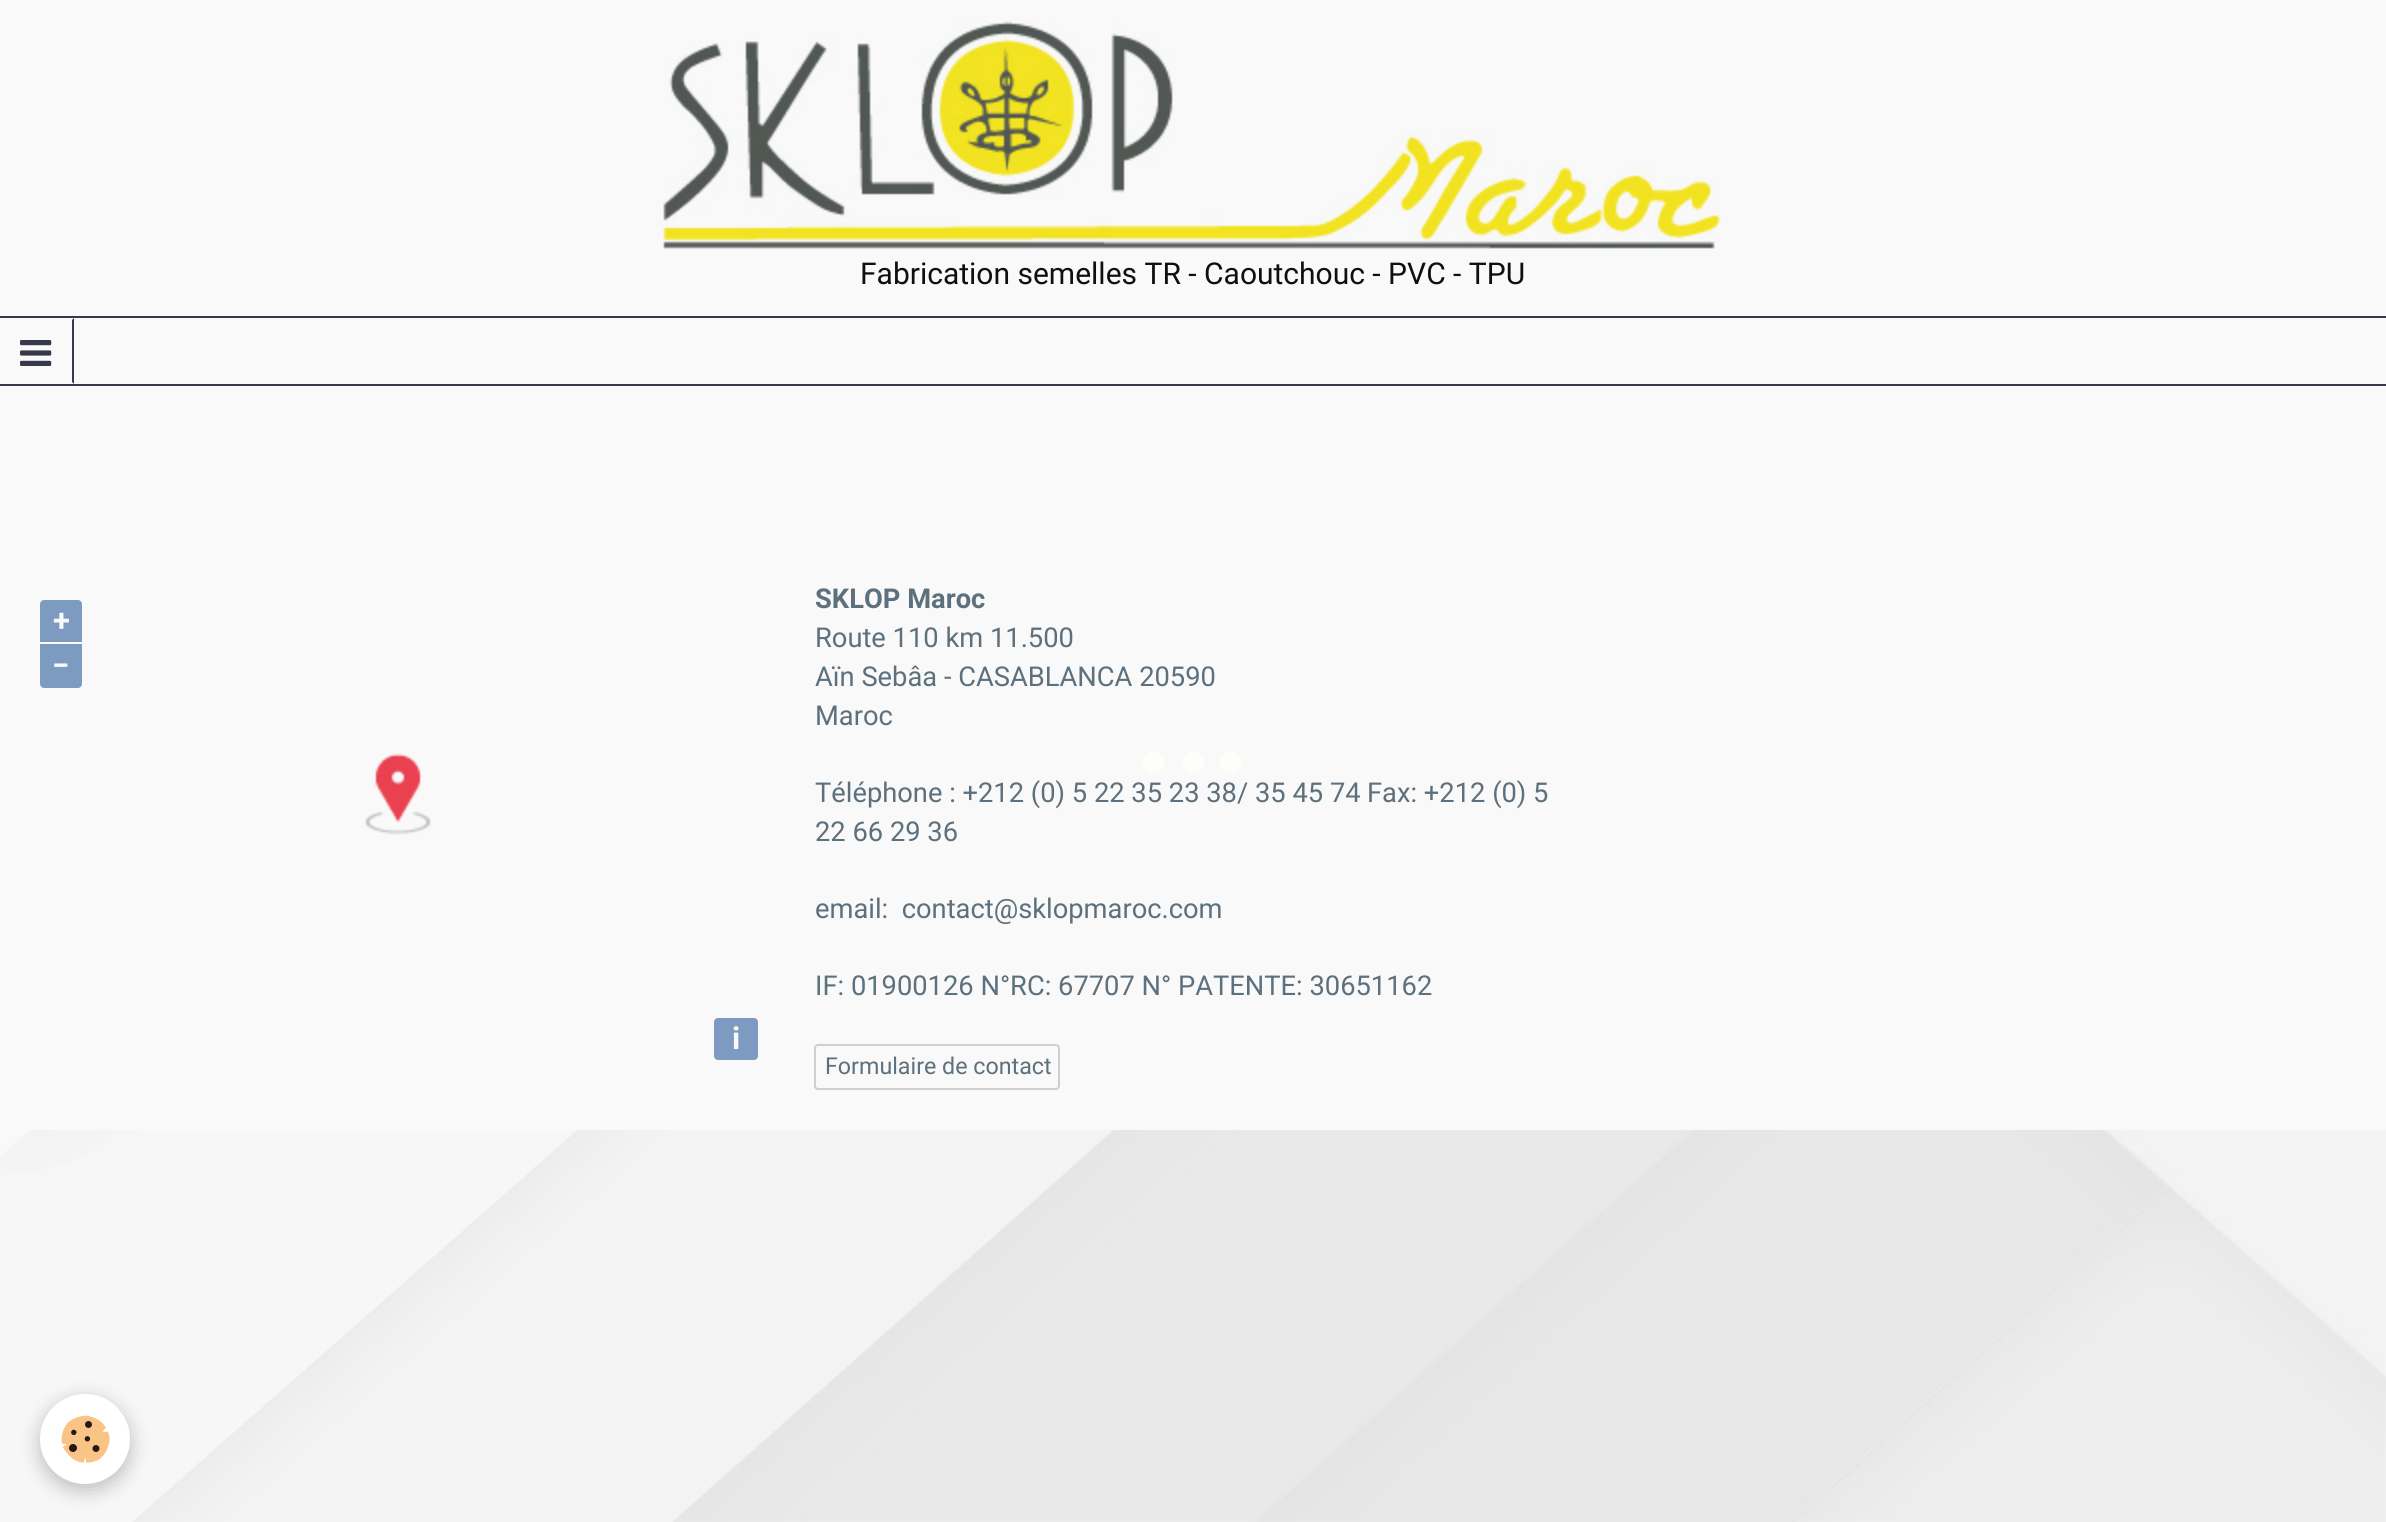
#include <cairo.h>
#include <math.h>
#include <stddef.h>


static void set_color(cairo_t *cr, unsigned color) {
    cairo_set_source_rgb(cr, (color >> 16) / 255.0, (color >> 8 & 255) / 255.0, (color & 255) / 255.0);
}

static void draw_text(cairo_t *cr, double x, double y, const char *s, const char *family, double size, int italic, int bold, unsigned color) {
    cairo_select_font_face(cr, family, italic ? CAIRO_FONT_SLANT_ITALIC : CAIRO_FONT_SLANT_NORMAL,
        bold ? CAIRO_FONT_WEIGHT_BOLD : CAIRO_FONT_WEIGHT_NORMAL);
    cairo_set_font_size(cr, size);
    set_color(cr, color);
    cairo_move_to(cr, x, y);
    cairo_show_text(cr, s);
}

static void fill_rect(cairo_t *cr, double x, double y, double w, double h, unsigned color) {
    set_color(cr, color);
    cairo_rectangle(cr, x, y, w, h);
    cairo_fill(cr);
}

static void rounded_rect(cairo_t *cr, double x, double y, double w, double h, double r) {
    cairo_new_sub_path(cr);
    cairo_arc(cr, x + w - r, y + h - r, r, 0, M_PI / 2);
    cairo_arc(cr, x + r, y + h - r, r, M_PI / 2, M_PI);
    cairo_arc(cr, x + r, y + r, r, M_PI, 1.5 * M_PI);
    cairo_arc(cr, x + w - r, y + r, r, 1.5 * M_PI, 2 * M_PI);
    cairo_close_path(cr);
}

static void draw_shadow(cairo_t *cr, double x, double y, double w, double h, double r, double blur, double alpha) {
    cairo_push_group_with_content(cr, CAIRO_CONTENT_ALPHA);
    cairo_set_operator(cr, CAIRO_OPERATOR_SOURCE);
    for (int i = 15; i >= -15 && fmin(w, h) + blur * i / 3 > 0; i -= 2) {
        double e = blur * i / 6;
        cairo_set_source_rgba(cr, 0, 0, 0, alpha * erfc((i - 1) / 8.5) / 2);
        rounded_rect(cr, x - e, y - e, w + 2 * e, h + 2 * e, fmax(0, fmin(r + e + blur * .6, fmin(w, h) / 2 + e)));
        cairo_fill(cr);
    }
    cairo_pattern_t *soft = cairo_pop_group(cr);
    cairo_mask(cr, soft);
    cairo_pattern_destroy(soft);
}

static void draw_image(cairo_t *cr, const char *path, double x, double y, double w, double h) {
    cairo_surface_t *image = cairo_image_surface_create_from_png(path);
    cairo_save(cr);
    cairo_set_source_surface(cr, image, x, y);
    cairo_rectangle(cr, x, y, w, h);
    cairo_fill(cr);
    cairo_restore(cr);
    cairo_surface_destroy(image);
}

int main(void) {
    cairo_surface_t *surface = cairo_image_surface_create(CAIRO_FORMAT_RGB24, 2386, 1522);
    cairo_t *cr = cairo_create(surface);
    cairo_font_options_t *options = cairo_font_options_create();
    cairo_font_options_set_hint_metrics(options, CAIRO_HINT_METRICS_OFF);
    cairo_font_options_set_hint_style(options, CAIRO_HINT_STYLE_NONE);
    cairo_set_font_options(cr, options);
    cairo_set_miter_limit(cr, 4);
    set_color(cr, 0xF9F9F9);
    cairo_paint(cr);
    draw_image(cr, "assets/img1.png", 0, 1130, 2386, 392);
    draw_image(cr, "assets/img2.png", 663, 21, 1058, 228);
    draw_text(cr, 860, 284, "Fabrication semelles TR - Caoutchouc - PVC - TPU", "Roboto", 30, 0, 0, 0x100F0F);
    fill_rect(cr, 0, 316, 2386, 2, 0x38384B);
    fill_rect(cr, 0, 384, 2386, 2, 0x38384B);
    cairo_new_path(cr);
    cairo_move_to(cr, 74, 318);
    cairo_line_to(cr, 74, 384);
    cairo_line_to(cr, 72, 382);
    cairo_line_to(cr, 72, 320);
    cairo_close_path(cr);
    cairo_fill(cr);
    draw_image(cr, "assets/img3.png", 20, 340, 32, 26);
    set_color(cr, 0x7D9BC0);
    cairo_new_path(cr);
    cairo_move_to(cr, 44, 600);
    cairo_line_to(cr, 78, 600);
    cairo_curve_to(cr, 80, 600, 82, 602, 82, 604);
    cairo_line_to(cr, 82, 642);
    cairo_line_to(cr, 40, 642);
    cairo_line_to(cr, 40, 604);
    cairo_curve_to(cr, 40, 602, 42, 600, 44, 600);
    cairo_close_path(cr);
    cairo_fill(cr);
    draw_text(cr, 53, 631, "+", "Roboto", 31, 0, 1, 0xF9F9F9);
    set_color(cr, 0x7D9BC0);
    cairo_new_path(cr);
    cairo_move_to(cr, 40, 644);
    cairo_line_to(cr, 82, 644);
    cairo_line_to(cr, 82, 684);
    cairo_curve_to(cr, 82, 686, 80, 688, 78, 688);
    cairo_line_to(cr, 44, 688);
    cairo_curve_to(cr, 42, 688, 40, 686, 40, 684);
    cairo_close_path(cr);
    cairo_fill(cr);
    draw_text(cr, 52, 676, "−", "Roboto", 31, 0, 1, 0xF9F9F9);
    set_color(cr, 0x7D9BC0);
    rounded_rect(cr, 714, 1018, 44, 42, 4);
    cairo_fill(cr);
    draw_text(cr, 732, 1049, "i", "Roboto", 31, 0, 1, 0xF9F9F9);
    draw_image(cr, "assets/img4.png", 365, 753, 66, 82);
    draw_text(cr, 815, 608, "SKLOP Maroc", "Roboto", 27.3, 0, 1, 0x5D707D);
    draw_text(cr, 815, 647, "Route 110 km 11.500", "Roboto", 27.3, 0, 0, 0x5D707D);
    draw_text(cr, 815, 686, "Aïn Sebâa - CASABLANCA 20590", "Roboto", 27.3, 0, 0, 0x5D707D);
    draw_text(cr, 815, 725, "Maroc", "Roboto", 27.3, 0, 0, 0x5D707D);
    draw_text(cr, 815, 802, "Téléphone : +212 (0) 5 22 35 23 38/ 35 45 74", "Roboto", 27.3, 0, 0, 0x5D707D);
    draw_text(cr, 1367, 802, "Fax: +212 (0) 5", "Roboto", 27.3, 0, 0, 0x5D707D);
    draw_text(cr, 815, 841, "22 66 29 36", "Roboto", 27.3, 0, 0, 0x5D707D);
    draw_text(cr, 815, 918, "email:  contact@sklopmaroc.com", "Roboto", 27.3, 0, 0, 0x5D707D);
    draw_text(cr, 815, 995, "IF: 01900126 N°RC: 67707 N° PATENTE: 30651162", "Roboto", 27.3, 0, 0, 0x5D707D);
    rounded_rect(cr, 815, 1045, 244, 44, 3);
    set_color(cr, 0xCAD0D4);
    cairo_stroke(cr);
    draw_text(cr, 825, 1074, "Formulaire de contact", "Roboto", 23.25, 0, 0, 0x5D707D);
    set_color(cr, 0xFDFDF9);
    cairo_new_path(cr);
    cairo_arc(cr, 1153, 763, 11, 0, 2 * M_PI);
    cairo_fill(cr);
    cairo_arc(cr, 1193, 763, 11, 0, 2 * M_PI);
    cairo_fill(cr);
    cairo_arc(cr, 1231, 763, 11, 0, 2 * M_PI);
    cairo_fill(cr);
    set_color(cr, 0x000000);
    draw_shadow(cr, 40, 1400, 90, 90, 45, 10, 0.24);
    set_color(cr, 0xFFFFFF);
    cairo_arc(cr, 85, 1439, 45, 0, 2 * M_PI);
    cairo_fill(cr);
    draw_image(cr, "assets/img5.png", 61, 1415, 49, 48);
    cairo_surface_write_to_png(surface, "output.png");
    cairo_font_options_destroy(options);
    cairo_destroy(cr);
    cairo_surface_destroy(surface);
    return 0;
}
